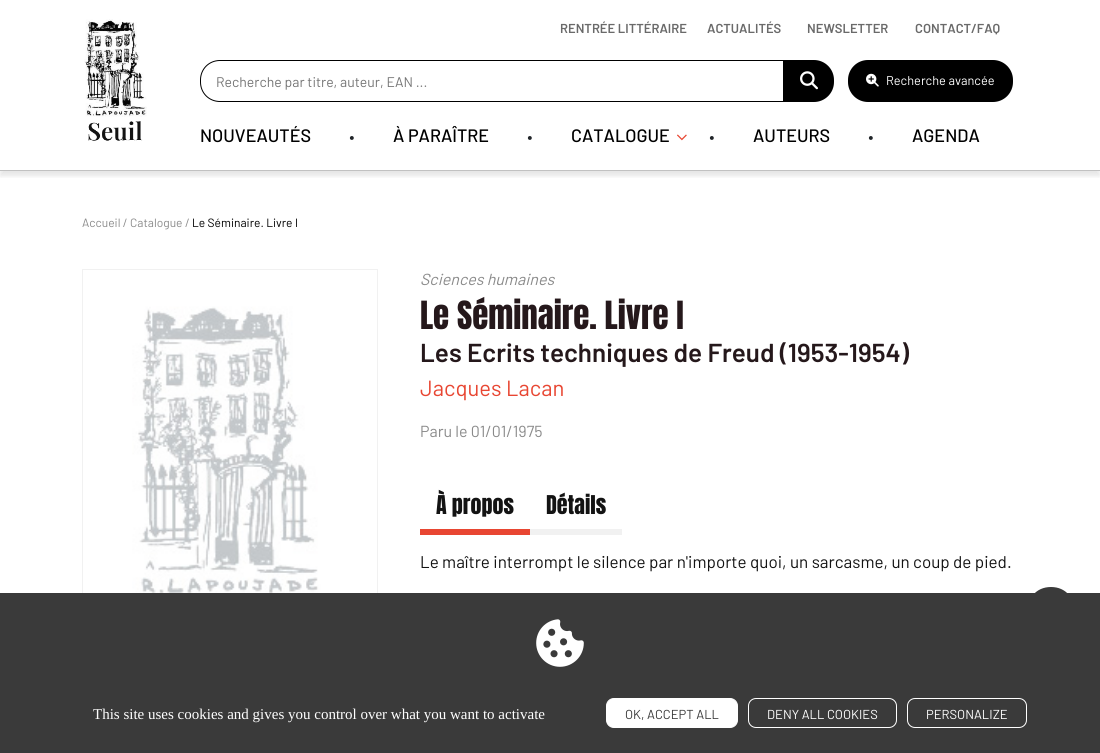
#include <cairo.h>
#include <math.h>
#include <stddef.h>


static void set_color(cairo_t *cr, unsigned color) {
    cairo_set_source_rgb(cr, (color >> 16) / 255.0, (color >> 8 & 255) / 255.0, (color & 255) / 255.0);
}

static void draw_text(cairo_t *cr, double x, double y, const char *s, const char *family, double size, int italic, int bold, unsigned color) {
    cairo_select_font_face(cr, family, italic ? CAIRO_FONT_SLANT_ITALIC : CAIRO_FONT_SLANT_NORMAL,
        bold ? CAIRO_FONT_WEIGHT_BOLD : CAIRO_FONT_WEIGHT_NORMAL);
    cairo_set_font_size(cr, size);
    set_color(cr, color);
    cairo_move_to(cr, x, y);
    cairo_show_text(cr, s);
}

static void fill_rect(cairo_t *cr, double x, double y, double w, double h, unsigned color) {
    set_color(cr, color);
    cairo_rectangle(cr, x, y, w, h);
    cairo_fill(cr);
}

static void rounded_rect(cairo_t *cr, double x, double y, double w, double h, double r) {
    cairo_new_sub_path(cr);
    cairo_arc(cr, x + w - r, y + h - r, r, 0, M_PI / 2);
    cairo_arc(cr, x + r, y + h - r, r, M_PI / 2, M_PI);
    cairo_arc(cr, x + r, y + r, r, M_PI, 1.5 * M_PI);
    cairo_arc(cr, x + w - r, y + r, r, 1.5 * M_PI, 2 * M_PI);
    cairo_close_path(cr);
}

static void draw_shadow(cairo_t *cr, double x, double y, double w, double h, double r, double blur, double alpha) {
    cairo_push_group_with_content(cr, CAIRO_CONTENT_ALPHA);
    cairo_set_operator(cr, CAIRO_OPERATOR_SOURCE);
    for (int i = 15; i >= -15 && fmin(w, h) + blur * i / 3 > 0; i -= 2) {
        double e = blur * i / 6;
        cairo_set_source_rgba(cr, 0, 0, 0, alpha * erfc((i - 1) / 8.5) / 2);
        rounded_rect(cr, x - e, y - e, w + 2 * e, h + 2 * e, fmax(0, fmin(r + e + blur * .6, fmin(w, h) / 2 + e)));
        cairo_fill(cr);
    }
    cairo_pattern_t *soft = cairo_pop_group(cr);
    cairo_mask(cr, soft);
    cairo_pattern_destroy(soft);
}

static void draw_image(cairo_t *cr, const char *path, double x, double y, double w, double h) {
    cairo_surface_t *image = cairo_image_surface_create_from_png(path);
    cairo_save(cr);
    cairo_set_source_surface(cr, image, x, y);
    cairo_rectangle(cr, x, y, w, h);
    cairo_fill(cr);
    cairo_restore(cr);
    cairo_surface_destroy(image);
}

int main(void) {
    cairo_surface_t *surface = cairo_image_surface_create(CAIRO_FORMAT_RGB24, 1100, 753);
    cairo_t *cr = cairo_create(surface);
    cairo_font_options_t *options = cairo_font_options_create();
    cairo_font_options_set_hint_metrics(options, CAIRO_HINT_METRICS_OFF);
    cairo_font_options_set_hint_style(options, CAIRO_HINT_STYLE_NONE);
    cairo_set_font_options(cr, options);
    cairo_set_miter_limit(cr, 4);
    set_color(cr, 0xFFFFFF);
    cairo_paint(cr);
    cairo_save(cr);
    cairo_rectangle(cr, 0, 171, 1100, 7);
    cairo_clip(cr);
    set_color(cr, 0x000000);
    draw_shadow(cr, 0, 5, 1100, 171, 0, 2.5, 0.1);
    cairo_restore(cr);
    fill_rect(cr, 0, 170, 1100, 1, 0xC1C1C1);
    draw_text(cr, 560, 33, "RENTRÉE LITTÉRAIRE", "Barlow SemiBold", 13, 0, 0, 0x6A6A6A);
    draw_text(cr, 707, 33, "ACTUALITÉS", "Barlow SemiBold", 13, 0, 0, 0x6A6A6A);
    draw_text(cr, 807, 33, "NEWSLETTER", "Barlow SemiBold", 13, 0, 0, 0x6A6A6A);
    draw_text(cr, 915, 33, "CONTACT/FAQ", "Barlow SemiBold", 13, 0, 0, 0x6A6A6A);
    draw_image(cr, "assets/img1.png", 84, 19, 63, 122);
    cairo_new_path(cr);
    cairo_move_to(cr, 220, 60.5);
    cairo_line_to(cr, 783.5, 60.5);
    cairo_line_to(cr, 783.5, 101.5);
    cairo_line_to(cr, 220, 101.5);
    cairo_curve_to(cr, 209, 101.5, 200.5, 93, 200.5, 82);
    cairo_line_to(cr, 200.5, 80);
    cairo_curve_to(cr, 200.5, 69, 209, 60.5, 220, 60.5);
    cairo_close_path(cr);
    set_color(cr, 0x000000);
    cairo_set_line_width(cr, 1);
    cairo_stroke(cr);
    draw_text(cr, 216, 87, "Recherche par titre, auteur, EAN ...", "Barlow", 14, 0, 0, 0x757575);
    set_color(cr, 0x000000);
    cairo_new_path(cr);
    cairo_move_to(cr, 784, 60);
    cairo_line_to(cr, 814, 60);
    cairo_curve_to(cr, 825, 60, 834, 69, 834, 80);
    cairo_line_to(cr, 834, 82);
    cairo_curve_to(cr, 834, 93, 825, 102, 814, 102);
    cairo_line_to(cr, 784, 102);
    cairo_close_path(cr);
    cairo_fill(cr);
    draw_image(cr, "assets/img2.png", 800, 71, 18, 19);
    rounded_rect(cr, 848, 60, 165, 42, 20);
    cairo_fill(cr);
    draw_image(cr, "assets/img3.png", 866, 73, 13, 14);
    draw_text(cr, 886, 85, "Recherche avancée", "Barlow", 12.75, 0, 0, 0xFFFFFF);
    draw_text(cr, 200, 142, "NOUVEAUTÉS", "Barlow Medium", 18, 0, 0, 0x000000);
    draw_text(cr, 347, 140, ".", "Barlow", 35, 0, 0, 0x212529);
    draw_text(cr, 393, 142, "À PARAÎTRE", "Barlow Medium", 18, 0, 0, 0x000000);
    draw_text(cr, 525, 140, ".", "Barlow", 35, 0, 0, 0x212529);
    draw_text(cr, 571, 142, "CATALOGUE", "Barlow Medium", 18, 0, 0, 0x000000);
    draw_image(cr, "assets/img4.png", 677, 134, 10, 7);
    draw_text(cr, 707, 140, ".", "Barlow", 35, 0, 0, 0x212529);
    draw_text(cr, 753, 142, "AUTEURS", "Barlow Medium", 18, 0, 0, 0x000000);
    draw_text(cr, 866, 140, ".", "Barlow", 35, 0, 0, 0x212529);
    draw_text(cr, 912, 142, "AGENDA", "Barlow Medium", 18, 0, 0, 0x000000);
    draw_text(cr, 82, 227, "Accueil / Catalogue /", "Barlow", 12, 0, 0, 0x8A8A8A);
    draw_text(cr, 192, 227, "Le Séminaire. Livre I", "Barlow", 12, 0, 0, 0x000000);
    cairo_rectangle(cr, 82.5, 269.5, 295, 462);
    set_color(cr, 0xF1F1F1);
    cairo_stroke(cr);
    draw_image(cr, "assets/img5.png", 83, 270, 294, 323);
    draw_text(cr, 420, 285, "Sciences humaines", "Barlow", 16, 1, 0, 0x8A8A8A);
    draw_text(cr, 420, 329, "Le Séminaire. Livre I", "Anton", 33, 0, 0, 0x25181B);
    draw_text(cr, 420, 362, "Les Ecrits techniques de Freud (1953-1954)", "Barlow SemiBold", 26, 0, 0, 0x25181B);
    draw_text(cr, 420, 396, "Jacques Lacan", "Barlow", 22, 0, 0, 0xE84632);
    draw_text(cr, 420, 437, "Paru le 01/01/1975", "Barlow", 16, 0, 0, 0x8A8A8A);
    fill_rect(cr, 420, 529, 110, 6, 0xE84632);
    draw_text(cr, 436, 514, "À propos", "Anton", 22, 0, 0, 0x131313);
    fill_rect(cr, 530, 529, 92, 6, 0xF1F1F1);
    draw_text(cr, 546, 514, "Détails", "Anton", 22, 0, 0, 0x131313);
    draw_text(cr, 420, 568, "Le maître interrompt le silence par n'importe quoi, un sarcasme, un coup de pied.", "Barlow", 17, 0, 0, 0x131313);
    set_color(cr, 0x3A3A3A);
    cairo_new_path(cr);
    cairo_move_to(cr, 1051, 635);
    cairo_curve_to(cr, 1083, 635, 1082, 587, 1051, 587);
    cairo_curve_to(cr, 1020, 587, 1019, 635, 1051, 635);
    cairo_close_path(cr);
    cairo_move_to(cr, 1062, 612);
    cairo_curve_to(cr, 1064, 614, 1062, 617, 1060, 616);
    cairo_line_to(cr, 1051, 607);
    cairo_line_to(cr, 1043, 616);
    cairo_curve_to(cr, 1042, 616, 1041, 616, 1040, 616);
    cairo_curve_to(cr, 1039, 615, 1039, 613, 1040, 612);
    cairo_line_to(cr, 1049, 603);
    cairo_curve_to(cr, 1050, 602, 1052, 602, 1053, 603);
    cairo_close_path(cr);
    cairo_fill(cr);
    fill_rect(cr, 0, 593, 1100, 160, 0x3A3A3A);
    draw_image(cr, "assets/img6.png", 536, 619, 48, 48);
    draw_text(cr, 93, 719, "This site uses cookies and gives you control over what you want to activate", "Liberation Serif", 15, 0, 0, 0xFFFFFF);
    rounded_rect(cr, 606.5, 698.5, 131, 29, 7.5);
    cairo_fill_preserve(cr);
    cairo_stroke(cr);
    draw_text(cr, 625, 719, "OK, ACCEPT ALL", "Barlow", 13, 0, 0, 0x3A3A3A);
    rounded_rect(cr, 748.5, 698.5, 148, 29, 7.5);
    set_color(cr, 0xFFFFFF);
    cairo_stroke(cr);
    draw_text(cr, 767, 719, "DENY ALL COOKIES", "Barlow", 13, 0, 0, 0xFFFFFF);
    rounded_rect(cr, 907.5, 698.5, 119, 29, 7.5);
    cairo_stroke(cr);
    draw_text(cr, 926, 719, "PERSONALIZE", "Barlow", 13, 0, 0, 0xFFFFFF);
    cairo_surface_write_to_png(surface, "output.png");
    cairo_font_options_destroy(options);
    cairo_destroy(cr);
    cairo_surface_destroy(surface);
    return 0;
}
